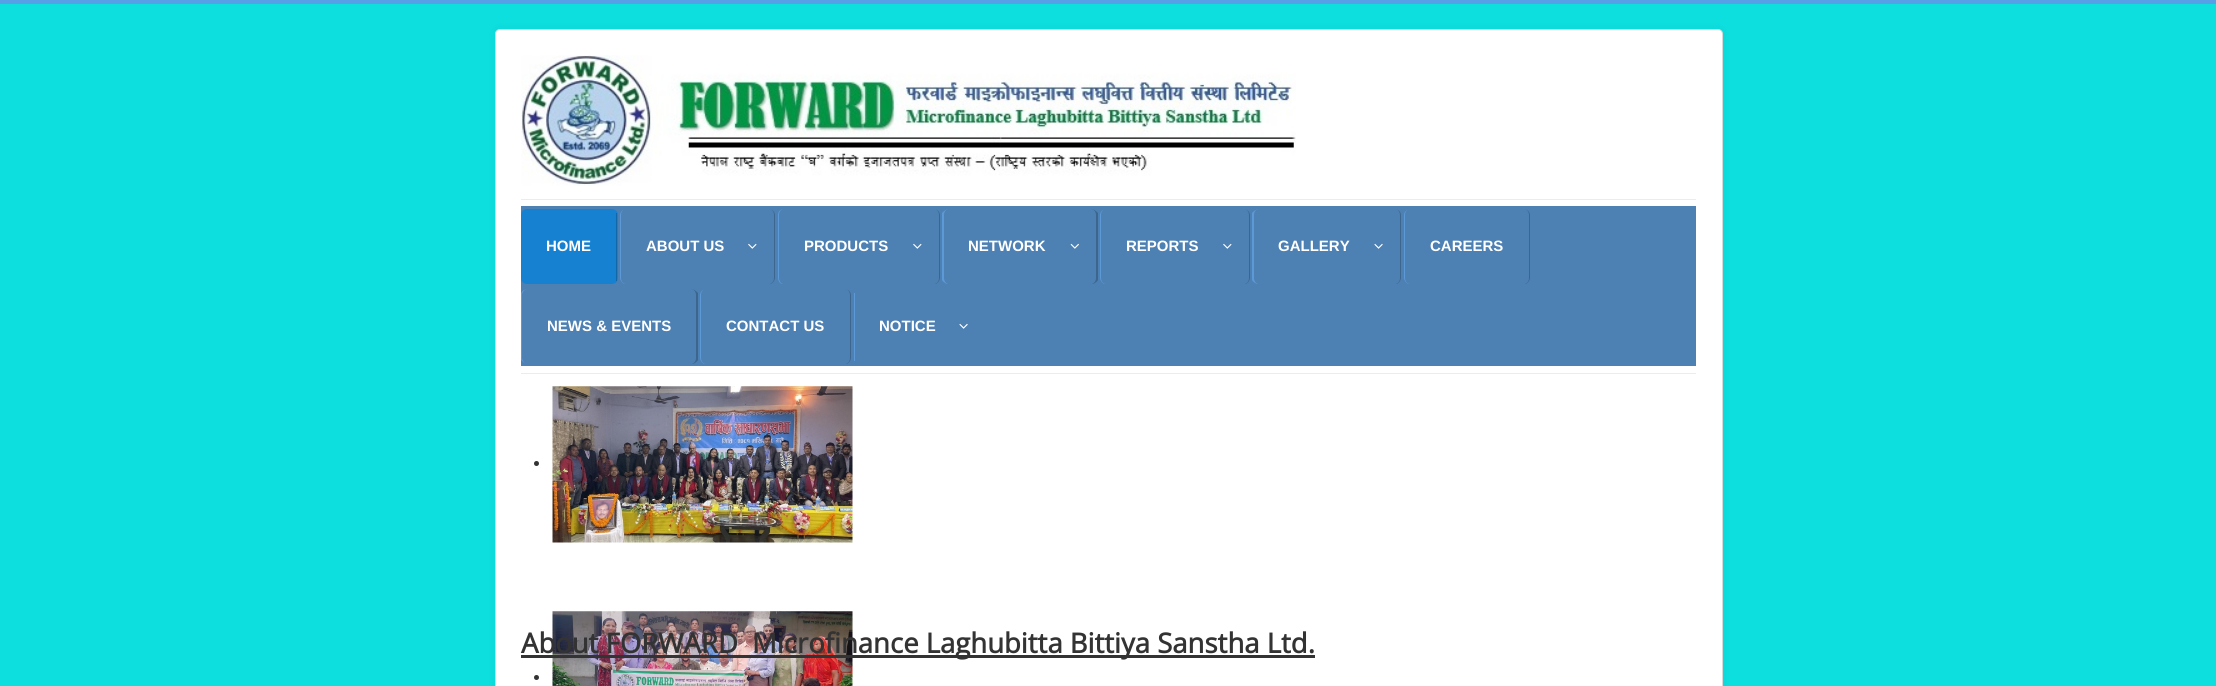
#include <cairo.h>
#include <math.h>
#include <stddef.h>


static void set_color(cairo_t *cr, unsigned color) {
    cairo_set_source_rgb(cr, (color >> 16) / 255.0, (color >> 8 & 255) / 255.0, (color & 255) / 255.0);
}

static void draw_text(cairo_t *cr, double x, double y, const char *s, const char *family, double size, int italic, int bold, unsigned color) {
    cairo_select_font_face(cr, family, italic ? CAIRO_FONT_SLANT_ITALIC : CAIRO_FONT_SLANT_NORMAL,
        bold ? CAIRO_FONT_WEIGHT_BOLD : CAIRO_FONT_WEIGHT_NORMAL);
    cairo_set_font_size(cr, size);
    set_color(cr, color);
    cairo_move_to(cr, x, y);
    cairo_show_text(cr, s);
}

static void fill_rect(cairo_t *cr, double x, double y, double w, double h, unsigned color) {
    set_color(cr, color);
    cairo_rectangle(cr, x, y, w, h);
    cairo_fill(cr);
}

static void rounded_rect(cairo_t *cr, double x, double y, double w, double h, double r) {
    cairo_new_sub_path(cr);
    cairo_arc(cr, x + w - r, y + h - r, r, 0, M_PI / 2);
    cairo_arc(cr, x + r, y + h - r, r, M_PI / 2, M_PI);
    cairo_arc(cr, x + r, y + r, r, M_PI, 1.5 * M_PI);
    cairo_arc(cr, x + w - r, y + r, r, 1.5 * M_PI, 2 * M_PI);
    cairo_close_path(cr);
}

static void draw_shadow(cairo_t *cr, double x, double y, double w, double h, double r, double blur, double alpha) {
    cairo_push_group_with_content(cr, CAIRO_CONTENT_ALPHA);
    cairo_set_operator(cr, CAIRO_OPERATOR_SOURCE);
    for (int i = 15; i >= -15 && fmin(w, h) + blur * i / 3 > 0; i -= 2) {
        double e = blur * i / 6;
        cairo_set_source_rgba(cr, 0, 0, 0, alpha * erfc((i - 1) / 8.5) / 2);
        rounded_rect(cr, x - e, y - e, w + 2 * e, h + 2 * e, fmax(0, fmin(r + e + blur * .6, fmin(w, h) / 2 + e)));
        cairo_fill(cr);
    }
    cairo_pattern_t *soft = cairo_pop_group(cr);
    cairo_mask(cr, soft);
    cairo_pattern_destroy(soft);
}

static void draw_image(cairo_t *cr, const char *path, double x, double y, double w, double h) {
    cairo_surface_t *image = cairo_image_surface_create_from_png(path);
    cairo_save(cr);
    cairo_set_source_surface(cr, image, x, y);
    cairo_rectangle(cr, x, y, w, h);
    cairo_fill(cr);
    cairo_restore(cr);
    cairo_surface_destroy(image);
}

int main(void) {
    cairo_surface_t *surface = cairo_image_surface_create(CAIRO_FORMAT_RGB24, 2216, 686);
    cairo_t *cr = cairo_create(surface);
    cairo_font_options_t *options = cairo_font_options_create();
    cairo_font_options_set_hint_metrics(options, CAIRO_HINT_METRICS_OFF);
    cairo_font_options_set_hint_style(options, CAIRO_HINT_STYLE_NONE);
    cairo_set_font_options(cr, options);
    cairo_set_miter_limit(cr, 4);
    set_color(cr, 0x0DDEDE);
    cairo_paint(cr);
    fill_rect(cr, 0, 0, 2216, 4, 0x579FE6);
    set_color(cr, 0x000000);
    draw_shadow(cr, 495, 29, 1228, 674, 5, 4, 0.05);
    set_color(cr, 0xFFFFFF);
    rounded_rect(cr, 495, 29, 1228, 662, 5);
    cairo_fill(cr);
    rounded_rect(cr, 495.5, 29.5, 1227, 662, 4.5);
    cairo_set_source_rgba(cr, 0, 0, 0, 0.15);
    cairo_set_line_width(cr, 1);
    cairo_stroke(cr);
    draw_image(cr, "assets/img1.png", 521, 55, 775, 131);
    fill_rect(cr, 521, 199, 1175, 1, 0xECECEC);
    fill_rect(cr, 521, 373, 1175, 1, 0xECECEC);
    fill_rect(cr, 521, 206, 1175, 160, 0x4D80B3);
    set_color(cr, 0x1681D1);
    rounded_rect(cr, 521, 209, 97, 75, 6);
    cairo_fill(cr);
    fill_rect(cr, 616, 213, 1, 68, 0x1167A7);
    draw_text(cr, 546, 251, "HOME", "Liberation Sans", 15, 0, 1, 0xFFFFFF);
    set_color(cr, 0x3D668F);
    cairo_new_path(cr);
    cairo_move_to(cr, 770, 284);
    cairo_curve_to(cr, 773, 283, 774, 280, 774, 278);
    cairo_line_to(cr, 774, 215);
    cairo_curve_to(cr, 774, 212, 772, 209, 769, 209);
    cairo_curve_to(cr, 772, 209, 775, 212, 775, 215);
    cairo_line_to(cr, 775, 278);
    cairo_curve_to(cr, 775, 280, 773, 283, 771, 284);
    cairo_close_path(cr);
    cairo_fill(cr);
    set_color(cr, 0x5C99D6);
    cairo_new_path(cr);
    cairo_move_to(cr, 625, 284);
    cairo_line_to(cr, 624, 284);
    cairo_curve_to(cr, 622, 283, 620, 280, 620, 278);
    cairo_line_to(cr, 620, 215);
    cairo_curve_to(cr, 620, 212, 623, 209, 626, 209);
    cairo_curve_to(cr, 623, 209, 621, 212, 621, 215);
    cairo_line_to(cr, 621, 278);
    cairo_curve_to(cr, 621, 280, 622, 283, 625, 284);
    cairo_close_path(cr);
    cairo_fill(cr);
    draw_text(cr, 646, 251, "ABOUT US", "Liberation Sans", 15, 0, 1, 0xFFFFFF);
    draw_image(cr, "assets/img2.png", 748, 243, 9, 6);
    set_color(cr, 0x3D668F);
    cairo_new_path(cr);
    cairo_move_to(cr, 935, 284);
    cairo_curve_to(cr, 938, 283, 939, 280, 939, 278);
    cairo_line_to(cr, 939, 215);
    cairo_curve_to(cr, 939, 212, 937, 209, 934, 209);
    cairo_curve_to(cr, 937, 209, 940, 212, 940, 215);
    cairo_line_to(cr, 940, 278);
    cairo_curve_to(cr, 940, 280, 938, 283, 936, 284);
    cairo_close_path(cr);
    cairo_fill(cr);
    set_color(cr, 0x5C99D6);
    cairo_new_path(cr);
    cairo_move_to(cr, 784, 209);
    cairo_curve_to(cr, 781, 209, 779, 212, 779, 215);
    cairo_line_to(cr, 779, 278);
    cairo_curve_to(cr, 779, 280, 780, 283, 783, 284);
    cairo_line_to(cr, 782, 284);
    cairo_curve_to(cr, 779, 283, 778, 280, 778, 278);
    cairo_line_to(cr, 778, 215);
    cairo_curve_to(cr, 778, 212, 780, 209, 784, 209);
    cairo_close_path(cr);
    cairo_fill(cr);
    draw_text(cr, 804, 251, "PRODUCTS", "Liberation Sans", 15, 0, 1, 0xFFFFFF);
    draw_image(cr, "assets/img2.png", 913, 243, 9, 6);
    set_color(cr, 0x3D668F);
    cairo_new_path(cr);
    cairo_move_to(cr, 1092, 284);
    cairo_curve_to(cr, 1095, 283, 1096, 280, 1096, 278);
    cairo_line_to(cr, 1096, 215);
    cairo_curve_to(cr, 1096, 212, 1094, 209, 1091, 209);
    cairo_curve_to(cr, 1094, 209, 1096, 211, 1098, 213);
    cairo_line_to(cr, 1098, 280);
    cairo_curve_to(cr, 1097, 282, 1095, 283, 1093, 284);
    cairo_close_path(cr);
    cairo_fill(cr);
    set_color(cr, 0x5C99D6);
    cairo_new_path(cr);
    cairo_move_to(cr, 949, 209);
    cairo_curve_to(cr, 946, 209, 944, 212, 944, 215);
    cairo_line_to(cr, 944, 278);
    cairo_curve_to(cr, 944, 280, 945, 283, 948, 284);
    cairo_line_to(cr, 947, 284);
    cairo_curve_to(cr, 945, 283, 943, 282, 942, 280);
    cairo_line_to(cr, 942, 213);
    cairo_curve_to(cr, 944, 211, 946, 209, 949, 209);
    cairo_close_path(cr);
    cairo_fill(cr);
    draw_text(cr, 968, 251, "NETWORK", "Liberation Sans", 15, 0, 1, 0xFFFFFF);
    draw_image(cr, "assets/img3.png", 1070, 243, 9, 6);
    set_color(cr, 0x3D668F);
    cairo_new_path(cr);
    cairo_move_to(cr, 1245, 284);
    cairo_curve_to(cr, 1248, 283, 1249, 280, 1249, 278);
    cairo_line_to(cr, 1249, 215);
    cairo_curve_to(cr, 1249, 212, 1247, 209, 1244, 209);
    cairo_curve_to(cr, 1247, 209, 1250, 212, 1250, 215);
    cairo_line_to(cr, 1250, 278);
    cairo_curve_to(cr, 1250, 280, 1248, 283, 1246, 284);
    cairo_close_path(cr);
    cairo_fill(cr);
    set_color(cr, 0x5C99D6);
    cairo_new_path(cr);
    cairo_move_to(cr, 1105, 284);
    cairo_line_to(cr, 1104, 284);
    cairo_curve_to(cr, 1102, 283, 1100, 280, 1100, 278);
    cairo_line_to(cr, 1100, 215);
    cairo_curve_to(cr, 1100, 212, 1103, 209, 1106, 209);
    cairo_curve_to(cr, 1103, 209, 1101, 212, 1101, 215);
    cairo_line_to(cr, 1101, 278);
    cairo_curve_to(cr, 1101, 280, 1102, 283, 1105, 284);
    cairo_close_path(cr);
    cairo_fill(cr);
    draw_text(cr, 1126, 251, "REPORTS", "Liberation Sans", 15, 0, 1, 0xFFFFFF);
    draw_image(cr, "assets/img2.png", 1223, 243, 9, 6);
    set_color(cr, 0x3D668F);
    cairo_new_path(cr);
    cairo_move_to(cr, 1396, 284);
    cairo_curve_to(cr, 1399, 283, 1400, 280, 1400, 278);
    cairo_line_to(cr, 1400, 215);
    cairo_curve_to(cr, 1400, 212, 1398, 209, 1395, 209);
    cairo_curve_to(cr, 1398, 209, 1401, 212, 1401, 215);
    cairo_line_to(cr, 1401, 278);
    cairo_curve_to(cr, 1401, 280, 1399, 283, 1397, 284);
    cairo_close_path(cr);
    cairo_fill(cr);
    set_color(cr, 0x5C99D6);
    cairo_new_path(cr);
    cairo_move_to(cr, 1259, 209);
    cairo_curve_to(cr, 1256, 209, 1254, 212, 1254, 215);
    cairo_line_to(cr, 1254, 278);
    cairo_curve_to(cr, 1254, 280, 1255, 283, 1258, 284);
    cairo_line_to(cr, 1257, 284);
    cairo_curve_to(cr, 1255, 283, 1253, 282, 1252, 280);
    cairo_line_to(cr, 1252, 213);
    cairo_curve_to(cr, 1254, 211, 1256, 209, 1259, 209);
    cairo_close_path(cr);
    cairo_fill(cr);
    draw_text(cr, 1278, 251, "GALLERY", "Liberation Sans", 15, 0, 1, 0xFFFFFF);
    draw_image(cr, "assets/img4.png", 1374, 243, 9, 6);
    set_color(cr, 0x3D668F);
    cairo_new_path(cr);
    cairo_move_to(cr, 1525, 284);
    cairo_curve_to(cr, 1528, 283, 1529, 280, 1529, 278);
    cairo_line_to(cr, 1529, 215);
    cairo_curve_to(cr, 1529, 212, 1527, 209, 1524, 209);
    cairo_curve_to(cr, 1527, 209, 1530, 212, 1530, 215);
    cairo_line_to(cr, 1530, 278);
    cairo_curve_to(cr, 1530, 280, 1528, 283, 1526, 284);
    cairo_close_path(cr);
    cairo_fill(cr);
    set_color(cr, 0x5C99D6);
    cairo_new_path(cr);
    cairo_move_to(cr, 1409, 284);
    cairo_line_to(cr, 1408, 284);
    cairo_curve_to(cr, 1406, 283, 1404, 280, 1404, 278);
    cairo_line_to(cr, 1404, 215);
    cairo_curve_to(cr, 1404, 212, 1407, 209, 1410, 209);
    cairo_curve_to(cr, 1407, 209, 1405, 212, 1405, 215);
    cairo_line_to(cr, 1405, 278);
    cairo_curve_to(cr, 1405, 280, 1406, 283, 1409, 284);
    cairo_close_path(cr);
    cairo_fill(cr);
    draw_text(cr, 1430, 251, "CAREERS", "Liberation Sans", 15, 0, 1, 0xFFFFFF);
    set_color(cr, 0x3D668F);
    cairo_new_path(cr);
    cairo_move_to(cr, 692, 364);
    cairo_curve_to(cr, 695, 363, 696, 360, 696, 358);
    cairo_line_to(cr, 696, 295);
    cairo_curve_to(cr, 696, 292, 694, 289, 691, 289);
    cairo_curve_to(cr, 694, 289, 696, 291, 698, 293);
    cairo_line_to(cr, 698, 360);
    cairo_curve_to(cr, 697, 362, 695, 363, 693, 364);
    cairo_close_path(cr);
    cairo_fill(cr);
    set_color(cr, 0x5C99D6);
    cairo_new_path(cr);
    cairo_move_to(cr, 528, 289);
    cairo_curve_to(cr, 525, 289, 522, 292, 522, 295);
    cairo_line_to(cr, 522, 358);
    cairo_curve_to(cr, 522, 360, 524, 363, 526, 364);
    cairo_curve_to(cr, 524, 363, 522, 361, 521, 360);
    cairo_line_to(cr, 521, 293);
    cairo_curve_to(cr, 522, 291, 525, 289, 528, 289);
    cairo_close_path(cr);
    cairo_fill(cr);
    draw_text(cr, 547, 331, "NEWS & EVENTS", "Liberation Sans", 15, 0, 1, 0xFFFFFF);
    set_color(cr, 0x3D668F);
    cairo_new_path(cr);
    cairo_move_to(cr, 846, 364);
    cairo_curve_to(cr, 849, 363, 850, 360, 850, 358);
    cairo_line_to(cr, 850, 295);
    cairo_curve_to(cr, 850, 292, 848, 289, 845, 289);
    cairo_curve_to(cr, 848, 289, 851, 292, 851, 295);
    cairo_line_to(cr, 851, 358);
    cairo_curve_to(cr, 851, 360, 849, 363, 847, 364);
    cairo_close_path(cr);
    cairo_fill(cr);
    set_color(cr, 0x5C99D6);
    cairo_new_path(cr);
    cairo_move_to(cr, 705, 364);
    cairo_line_to(cr, 704, 364);
    cairo_curve_to(cr, 702, 363, 700, 360, 700, 358);
    cairo_line_to(cr, 700, 295);
    cairo_curve_to(cr, 700, 292, 703, 289, 706, 289);
    cairo_curve_to(cr, 703, 289, 701, 292, 701, 295);
    cairo_line_to(cr, 701, 358);
    cairo_curve_to(cr, 701, 360, 702, 363, 705, 364);
    cairo_close_path(cr);
    cairo_fill(cr);
    draw_text(cr, 726, 331, "CONTACT US", "Liberation Sans", 15, 0, 1, 0xFFFFFF);
    fill_rect(cr, 854, 293, 1, 68, 0x5C99D6);
    draw_text(cr, 879, 331, "NOTICE", "Liberation Sans", 15, 0, 1, 0xFFFFFF);
    draw_image(cr, "assets/img4.png", 959, 323, 9, 6);
    set_color(cr, 0x333333);
    cairo_arc(cr, 536.5, 463.5, 2.5, 0, 2 * M_PI);
    cairo_fill(cr);
    draw_image(cr, "assets/img5.png", 552, 386, 301, 157);
    cairo_arc(cr, 536.5, 677.5, 2.5, 0, 2 * M_PI);
    cairo_fill(cr);
    draw_image(cr, "assets/img6.png", 552, 611, 301, 75);
    fill_rect(cr, 521, 655, 794, 3, 0x333333);
    draw_text(cr, 521, 653, "About FORWARD  Microfinance Laghubitta Bittiya Sanstha Ltd.", "Open Sans", 27.5, 0, 1, 0x333333);
    cairo_surface_write_to_png(surface, "output.png");
    cairo_font_options_destroy(options);
    cairo_destroy(cr);
    cairo_surface_destroy(surface);
    return 0;
}
